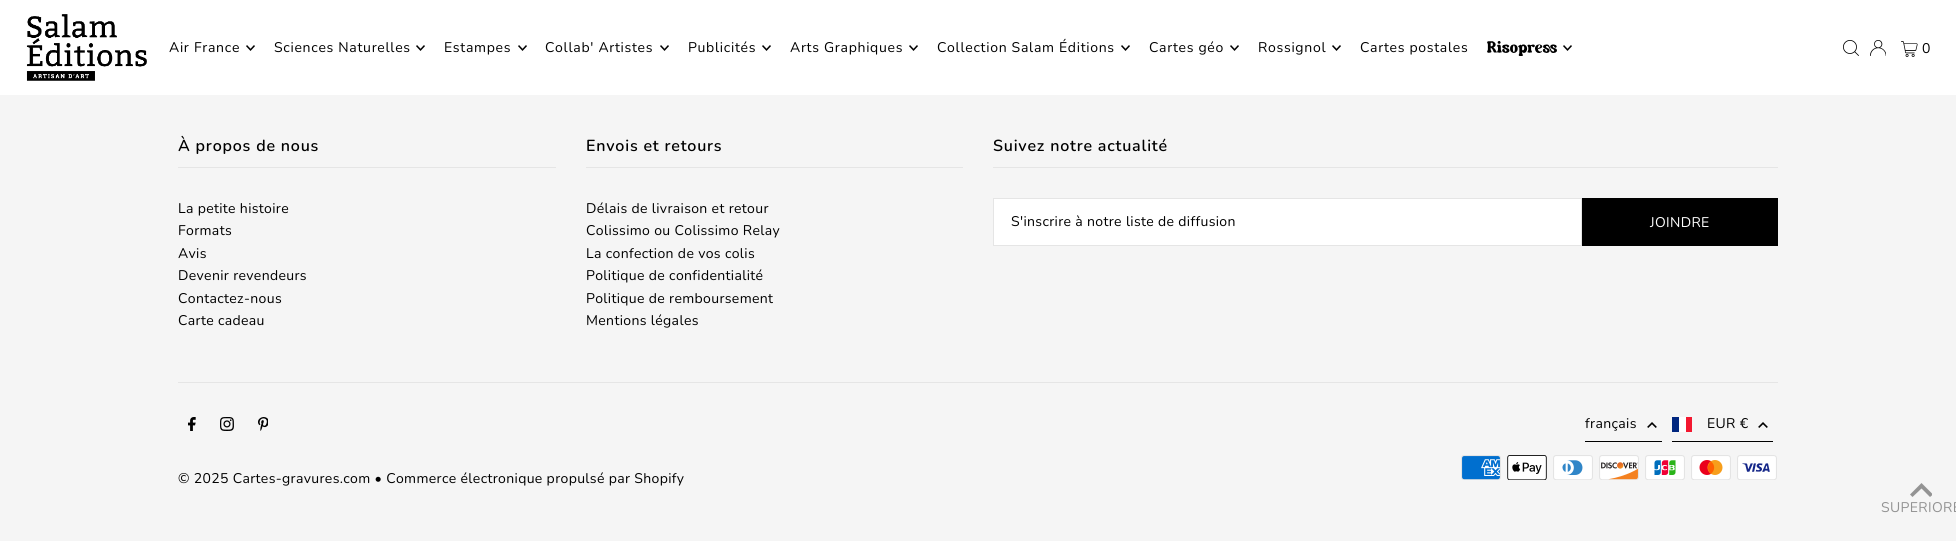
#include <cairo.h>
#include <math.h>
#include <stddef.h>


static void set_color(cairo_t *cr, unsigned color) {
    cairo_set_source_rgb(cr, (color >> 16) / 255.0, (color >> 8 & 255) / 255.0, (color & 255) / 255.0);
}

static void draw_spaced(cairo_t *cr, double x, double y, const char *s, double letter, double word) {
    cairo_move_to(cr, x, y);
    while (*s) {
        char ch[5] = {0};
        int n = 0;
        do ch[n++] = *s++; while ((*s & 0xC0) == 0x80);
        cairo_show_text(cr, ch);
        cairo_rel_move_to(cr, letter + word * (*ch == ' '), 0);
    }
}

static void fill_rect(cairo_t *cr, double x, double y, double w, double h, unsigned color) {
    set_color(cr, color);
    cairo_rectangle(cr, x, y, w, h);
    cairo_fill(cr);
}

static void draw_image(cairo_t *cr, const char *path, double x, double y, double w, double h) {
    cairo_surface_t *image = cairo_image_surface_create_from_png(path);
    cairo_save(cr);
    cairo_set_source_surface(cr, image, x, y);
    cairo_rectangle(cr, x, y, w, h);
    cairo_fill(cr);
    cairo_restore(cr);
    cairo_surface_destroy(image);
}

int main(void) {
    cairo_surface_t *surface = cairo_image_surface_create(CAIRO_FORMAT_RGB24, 1956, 541);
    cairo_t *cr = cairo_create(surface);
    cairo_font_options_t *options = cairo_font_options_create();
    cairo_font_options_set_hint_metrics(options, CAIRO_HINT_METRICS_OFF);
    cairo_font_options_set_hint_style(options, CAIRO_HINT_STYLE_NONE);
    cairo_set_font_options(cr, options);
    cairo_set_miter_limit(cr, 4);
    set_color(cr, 0xF5F5F5);
    cairo_paint(cr);
    fill_rect(cr, 0, 0, 1956, 95, 0xFFFFFF);
    draw_image(cr, "assets/img1.png", 26, 14, 121, 67);
    cairo_select_font_face(cr, "Nunito", CAIRO_FONT_SLANT_NORMAL, CAIRO_FONT_WEIGHT_NORMAL);
    cairo_set_font_size(cr, 14);
    set_color(cr, 0x000000);
    draw_spaced(cr, 169, 52, "Air France", 0.7, 0);
    draw_image(cr, "assets/img2.png", 246, 45, 9, 6);
    draw_spaced(cr, 274, 52, "Sciences Naturelles", 0.7, 0);
    draw_image(cr, "assets/img2.png", 416, 45, 9, 6);
    draw_spaced(cr, 444, 52, "Estampes", 0.7, 0);
    draw_image(cr, "assets/img2.png", 518, 45, 9, 6);
    draw_spaced(cr, 545, 52, "Collab' Artistes", 0.7, 0);
    draw_image(cr, "assets/img2.png", 660, 45, 9, 6);
    draw_spaced(cr, 688, 52, "Publicités", 0.7, 0);
    draw_image(cr, "assets/img2.png", 762, 45, 9, 6);
    draw_spaced(cr, 790, 52, "Arts Graphiques", 0.7, 0);
    draw_image(cr, "assets/img2.png", 909, 45, 9, 6);
    draw_spaced(cr, 937, 52, "Collection Salam Éditions", 0.7, 0);
    draw_image(cr, "assets/img2.png", 1121, 45, 9, 6);
    draw_spaced(cr, 1149, 52, "Cartes géo", 0.7, 0);
    draw_image(cr, "assets/img2.png", 1230, 45, 9, 6);
    draw_spaced(cr, 1258, 52, "Rossignol", 0.7, 0);
    draw_image(cr, "assets/img2.png", 1332, 45, 9, 6);
    draw_spaced(cr, 1360, 52, "Cartes postales", 0.7, 0);
    draw_image(cr, "assets/img3.png", 1487, 41, 70, 15);
    draw_image(cr, "assets/img2.png", 1563, 45, 9, 6);
    draw_image(cr, "assets/img4.png", 1843, 40, 16, 16);
    draw_image(cr, "assets/img5.png", 1870, 40, 16, 16);
    draw_image(cr, "assets/img6.png", 1901, 41, 17, 16);
    draw_spaced(cr, 1922, 53, "0", 0.35, 0);
    fill_rect(cr, 178, 167, 378, 1, 0xE5E5E5);
    cairo_select_font_face(cr, "Nunito SemiBold", CAIRO_FONT_SLANT_NORMAL, CAIRO_FONT_WEIGHT_NORMAL);
    cairo_set_font_size(cr, 16);
    set_color(cr, 0x000000);
    draw_spaced(cr, 178, 151, "À propos de nous", 0.8, 0);
    cairo_select_font_face(cr, "Nunito", CAIRO_FONT_SLANT_NORMAL, CAIRO_FONT_WEIGHT_NORMAL);
    cairo_set_font_size(cr, 14);
    draw_spaced(cr, 178, 213, "La petite histoire", 0.35, 0);
    draw_spaced(cr, 178, 235, "Formats", 0.35, 0);
    draw_spaced(cr, 178, 258, "Avis", 0.35, 0);
    draw_spaced(cr, 178, 280, "Devenir revendeurs", 0.35, 0);
    draw_spaced(cr, 178, 303, "Contactez-nous", 0.35, 0);
    draw_spaced(cr, 178, 325, "Carte cadeau", 0.35, 0);
    fill_rect(cr, 586, 167, 377, 1, 0xE5E5E5);
    cairo_select_font_face(cr, "Nunito SemiBold", CAIRO_FONT_SLANT_NORMAL, CAIRO_FONT_WEIGHT_NORMAL);
    cairo_set_font_size(cr, 16);
    set_color(cr, 0x000000);
    draw_spaced(cr, 586, 151, "Envois et retours", 0.8, 0);
    cairo_select_font_face(cr, "Nunito", CAIRO_FONT_SLANT_NORMAL, CAIRO_FONT_WEIGHT_NORMAL);
    cairo_set_font_size(cr, 14);
    draw_spaced(cr, 586, 213, "Délais de livraison et retour", 0.35, 0);
    draw_spaced(cr, 586, 235, "Colissimo ou Colissimo Relay", 0.35, 0);
    draw_spaced(cr, 586, 258, "La confection de vos colis", 0.35, 0);
    draw_spaced(cr, 586, 280, "Politique de confidentialité", 0.35, 0);
    draw_spaced(cr, 586, 303, "Politique de remboursement", 0.35, 0);
    draw_spaced(cr, 586, 325, "Mentions légales", 0.35, 0);
    fill_rect(cr, 993, 167, 785, 1, 0xE5E5E5);
    cairo_select_font_face(cr, "Nunito SemiBold", CAIRO_FONT_SLANT_NORMAL, CAIRO_FONT_WEIGHT_NORMAL);
    cairo_set_font_size(cr, 16);
    set_color(cr, 0x000000);
    draw_spaced(cr, 993, 151, "Suivez notre actualité", 0.8, 0);
    set_color(cr, 0xFFFFFF);
    cairo_rectangle(cr, 993.5, 198.5, 588, 47);
    cairo_fill_preserve(cr);
    set_color(cr, 0xE5E5E5);
    cairo_set_line_width(cr, 1);
    cairo_stroke(cr);
    cairo_select_font_face(cr, "Nunito", CAIRO_FONT_SLANT_NORMAL, CAIRO_FONT_WEIGHT_NORMAL);
    cairo_set_font_size(cr, 14);
    set_color(cr, 0x000000);
    draw_spaced(cr, 1011, 226, "S'inscrire à notre liste de diffusion", 0.35, 0);
    fill_rect(cr, 1582, 198, 196, 48, 0x000000);
    set_color(cr, 0xFFFFFF);
    draw_spaced(cr, 1650, 227, "JOINDRE", 0.35, 0);
    fill_rect(cr, 178, 382, 1600, 1, 0xE5E5E5);
    fill_rect(cr, 1585, 441, 77, 1, 0x000000);
    draw_spaced(cr, 1585, 428, "français", 0.35, 0);
    draw_image(cr, "assets/img7.png", 1647, 422, 10, 6);
    fill_rect(cr, 1672, 441, 101, 1, 0x000000);
    fill_rect(cr, 1679, 417, 7, 15, 0xFFFFFF);
    fill_rect(cr, 1672, 417, 7, 15, 0x00267F);
    fill_rect(cr, 1686, 417, 6, 15, 0xF31830);
    set_color(cr, 0x000000);
    draw_spaced(cr, 1707, 428, "EUR €", 0.35, 0);
    draw_image(cr, "assets/img7.png", 1758, 422, 10, 6);
    draw_image(cr, "assets/img8.png", 1461, 455, 40, 25);
    draw_image(cr, "assets/img9.png", 1507, 455, 40, 25);
    draw_image(cr, "assets/img10.png", 1553, 455, 40, 25);
    draw_image(cr, "assets/img11.png", 1599, 455, 40, 25);
    draw_image(cr, "assets/img12.png", 1645, 455, 40, 25);
    draw_image(cr, "assets/img13.png", 1691, 455, 40, 25);
    draw_image(cr, "assets/img14.png", 1737, 455, 40, 25);
    draw_image(cr, "assets/img15.png", 188, 417, 8, 14);
    draw_image(cr, "assets/img16.png", 220, 417, 14, 14);
    draw_image(cr, "assets/img17.png", 258, 417, 10, 14);
    draw_spaced(cr, 178, 483, "© 2025 Cartes-gravures.com • Commerce électronique propulsé par Shopify", 0.35, 0);
    cairo_save(cr);
    cairo_rectangle(cr, 1910, 483, 22, 14);
    cairo_clip(cr);
    set_color(cr, 0x939393);
    cairo_new_path(cr);
    cairo_move_to(cr, 1921.5, 483);
    cairo_line_to(cr, 1910, 494.5);
    cairo_line_to(cr, 1912.5, 497);
    cairo_line_to(cr, 1921.5, 488.5);
    cairo_line_to(cr, 1930, 497);
    cairo_line_to(cr, 1933, 494.5);
    cairo_close_path(cr);
    cairo_fill(cr);
    cairo_restore(cr);
    set_color(cr, 0x939393);
    draw_spaced(cr, 1881, 512, "SUPERIORE", 0.35, 0);
    cairo_surface_write_to_png(surface, "output.png");
    cairo_font_options_destroy(options);
    cairo_destroy(cr);
    cairo_surface_destroy(surface);
    return 0;
}
